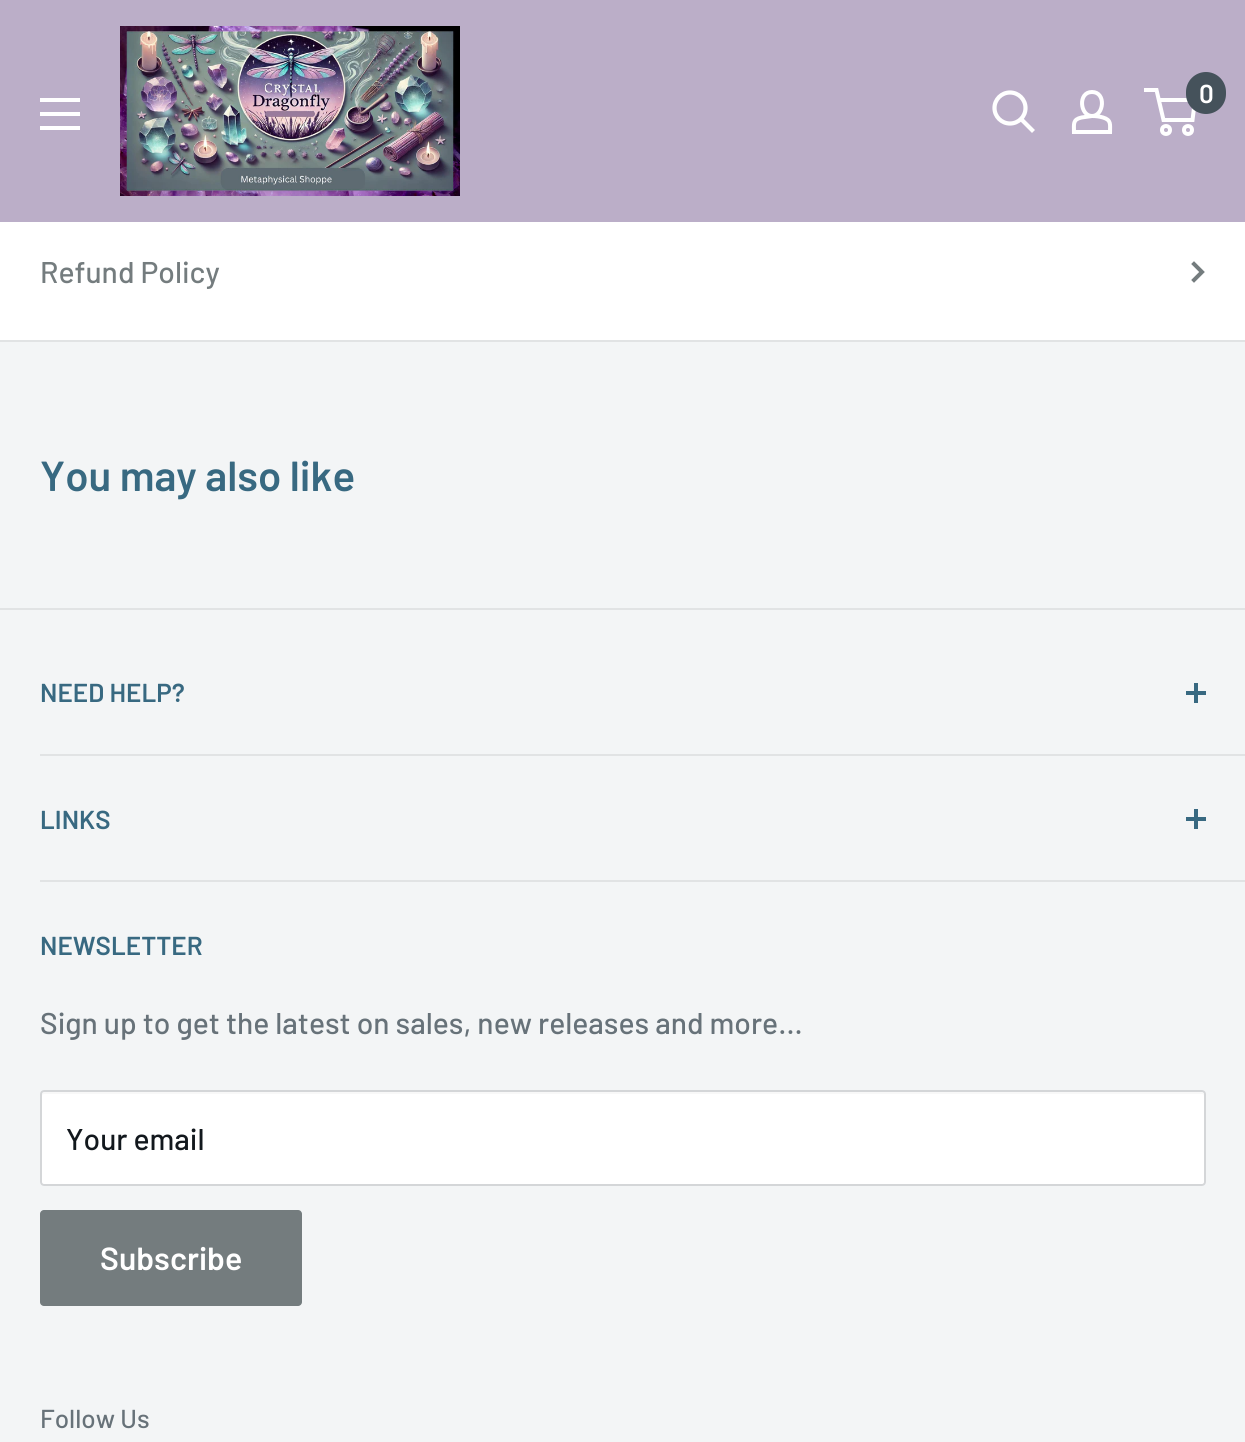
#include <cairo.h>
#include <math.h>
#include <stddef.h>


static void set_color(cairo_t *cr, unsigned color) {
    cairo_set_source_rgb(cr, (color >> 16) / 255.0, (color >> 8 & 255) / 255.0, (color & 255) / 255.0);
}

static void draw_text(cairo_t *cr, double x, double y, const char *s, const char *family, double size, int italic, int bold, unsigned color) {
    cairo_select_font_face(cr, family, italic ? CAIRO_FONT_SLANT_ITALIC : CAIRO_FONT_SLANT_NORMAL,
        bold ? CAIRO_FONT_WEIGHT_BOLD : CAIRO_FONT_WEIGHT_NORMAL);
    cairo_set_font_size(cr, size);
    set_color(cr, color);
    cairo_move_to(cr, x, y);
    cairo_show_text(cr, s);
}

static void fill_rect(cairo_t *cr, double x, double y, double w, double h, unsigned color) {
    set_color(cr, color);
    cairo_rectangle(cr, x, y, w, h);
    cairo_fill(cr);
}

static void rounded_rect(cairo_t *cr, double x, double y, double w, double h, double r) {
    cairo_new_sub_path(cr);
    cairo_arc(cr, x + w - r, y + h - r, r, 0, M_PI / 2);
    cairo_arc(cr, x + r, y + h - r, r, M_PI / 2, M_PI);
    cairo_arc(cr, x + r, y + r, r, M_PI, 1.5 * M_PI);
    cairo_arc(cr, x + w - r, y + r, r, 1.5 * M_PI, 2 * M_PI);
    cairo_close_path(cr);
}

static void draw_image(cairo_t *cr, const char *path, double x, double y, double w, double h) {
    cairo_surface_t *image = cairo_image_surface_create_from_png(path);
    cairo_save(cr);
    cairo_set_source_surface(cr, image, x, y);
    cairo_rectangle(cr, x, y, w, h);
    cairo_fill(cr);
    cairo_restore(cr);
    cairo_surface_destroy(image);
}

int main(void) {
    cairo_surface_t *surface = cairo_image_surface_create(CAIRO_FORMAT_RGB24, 1245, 1442);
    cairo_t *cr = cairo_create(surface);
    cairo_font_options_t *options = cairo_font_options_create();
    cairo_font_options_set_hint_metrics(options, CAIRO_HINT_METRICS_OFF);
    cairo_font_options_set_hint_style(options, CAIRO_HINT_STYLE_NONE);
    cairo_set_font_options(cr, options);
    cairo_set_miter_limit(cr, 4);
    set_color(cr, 0xF3F5F6);
    cairo_paint(cr);
    fill_rect(cr, 0, 0, 1245, 222, 0xBBAEC8);
    draw_image(cr, "assets/img1.png", 120, 26, 340, 170);
    cairo_new_path(cr);
    cairo_move_to(cr, 1032, 130);
    cairo_line_to(cr, 1021.5, 119.5);
    set_color(cr, 0xFFFFFF);
    cairo_set_line_width(cr, 4.2);
    cairo_set_line_cap(cr, CAIRO_LINE_CAP_SQUARE);
    cairo_stroke(cr);
    cairo_arc(cr, 1010, 108, 15.5, 0, 2 * M_PI);
    cairo_set_line_cap(cr, CAIRO_LINE_CAP_BUTT);
    cairo_stroke(cr);
    cairo_new_path(cr);
    cairo_move_to(cr, 1092, 116);
    cairo_curve_to(cr, 1096, 116, 1099.5, 116.5, 1103, 117.5);
    cairo_curve_to(cr, 1111.5, 120, 1110, 124.5, 1110, 132);
    cairo_line_to(cr, 1074, 132);
    cairo_curve_to(cr, 1074, 124, 1072.5, 119.5, 1081.5, 117.5);
    cairo_close_path(cr);
    cairo_move_to(cr, 1092, 116);
    cairo_curve_to(cr, 1080, 116, 1077.5, 92, 1092, 92);
    cairo_curve_to(cr, 1106.5, 92, 1104, 116, 1092, 116);
    cairo_close_path(cr);
    cairo_set_line_width(cr, 4);
    cairo_stroke(cr);
    cairo_arc(cr, 1166, 130, 4, 0, 2 * M_PI);
    cairo_stroke(cr);
    cairo_arc(cr, 1188, 130, 4, 0, 2 * M_PI);
    cairo_stroke(cr);
    cairo_new_path(cr);
    cairo_move_to(cr, 1158.5, 100);
    cairo_line_to(cr, 1195, 100);
    cairo_line_to(cr, 1192.5, 120);
    cairo_line_to(cr, 1163.5, 120);
    cairo_line_to(cr, 1156.5, 90);
    cairo_line_to(cr, 1144, 90);
    cairo_stroke(cr);
    set_color(cr, 0x45525B);
    rounded_rect(cr, 1186, 72, 40, 42, 20);
    cairo_fill(cr);
    draw_text(cr, 1199, 103, "0", "Barlow SemiBold", 26, 0, 0, 0xFFFFFF);
    cairo_set_fill_rule(cr, CAIRO_FILL_RULE_EVEN_ODD);
    cairo_new_path(cr);
    cairo_move_to(cr, 40, 126);
    cairo_line_to(cr, 80, 126);
    cairo_line_to(cr, 80, 130);
    cairo_line_to(cr, 40, 130);
    cairo_close_path(cr);
    cairo_move_to(cr, 40, 98);
    cairo_line_to(cr, 80, 98);
    cairo_line_to(cr, 80, 102);
    cairo_line_to(cr, 40, 102);
    cairo_close_path(cr);
    cairo_move_to(cr, 40, 112);
    cairo_line_to(cr, 80, 112);
    cairo_line_to(cr, 80, 116);
    cairo_line_to(cr, 40, 116);
    cairo_close_path(cr);
    cairo_fill(cr);
    fill_rect(cr, 0, 222, 1245, 118, 0xFFFFFF);
    fill_rect(cr, 0, 340, 1245, 2, 0xE1E3E4);
    draw_text(cr, 40, 283, "Refund Policy", "Barlow Medium", 30, 0, 0, 0x747C7E);
    cairo_new_path(cr);
    cairo_move_to(cr, 1194, 264);
    cairo_line_to(cr, 1202, 272);
    cairo_line_to(cr, 1194, 280);
    cairo_set_line_cap(cr, CAIRO_LINE_CAP_SQUARE);
    cairo_stroke(cr);
    draw_text(cr, 40, 491, "You may also like", "Barlow SemiBold", 42, 0, 0, 0x386981);
    fill_rect(cr, 0, 608, 1245, 2, 0xE1E3E4);
    fill_rect(cr, 40, 754, 1205, 2, 0xE1E3E4);
    draw_text(cr, 40, 702, "NEED HELP?", "Barlow SemiBold", 26, 0, 0, 0x386981);
    fill_rect(cr, 1194, 683, 4, 20, 0x386981);
    fill_rect(cr, 1186, 691, 20, 4, 0x386981);
    fill_rect(cr, 40, 880, 1205, 2, 0xE1E3E4);
    draw_text(cr, 40, 829, "LINKS", "Barlow SemiBold", 26, 0, 0, 0x386981);
    fill_rect(cr, 1194, 809, 4, 20, 0x386981);
    fill_rect(cr, 1186, 817, 20, 4, 0x386981);
    draw_text(cr, 40, 955, "NEWSLETTER", "Barlow SemiBold", 26, 0, 0, 0x386981);
    draw_text(cr, 40, 1034, "Sign up to get the latest on sales, new releases and more…", "Barlow Medium", 30, 0, 0, 0x677279);
    set_color(cr, 0xFFFFFF);
    rounded_rect(cr, 40, 1090, 1166, 96, 4);
    cairo_fill(cr);
    set_color(cr, 0xF8F8F8);
    cairo_set_fill_rule(cr, CAIRO_FILL_RULE_WINDING);
    cairo_new_path(cr);
    cairo_move_to(cr, 44, 1094);
    cairo_line_to(cr, 1202, 1094);
    cairo_curve_to(cr, 1203, 1094, 1204, 1095, 1204, 1096);
    cairo_curve_to(cr, 1204, 1094, 1204, 1092, 1202, 1092);
    cairo_line_to(cr, 43, 1092);
    cairo_line_to(cr, 42, 1093);
    cairo_line_to(cr, 42, 1096);
    cairo_curve_to(cr, 42, 1095, 43, 1094, 44, 1094);
    cairo_close_path(cr);
    cairo_fill(cr);
    rounded_rect(cr, 41, 1091, 1164, 94, 3);
    set_color(cr, 0xD4D6D8);
    cairo_set_line_width(cr, 2);
    cairo_set_line_cap(cr, CAIRO_LINE_CAP_BUTT);
    cairo_stroke(cr);
    draw_text(cr, 66, 1150, "Your email", "Barlow Medium", 30, 0, 0, 0x12181D);
    set_color(cr, 0x747C7E);
    rounded_rect(cr, 40, 1210, 262, 96, 4);
    cairo_fill(cr);
    draw_text(cr, 100, 1270, "Subscribe", "Barlow SemiBold", 32, 0, 0, 0xFFFFFF);
    draw_text(cr, 40, 1428, "Follow Us", "Barlow Medium", 26, 0, 0, 0x677279);
    cairo_surface_write_to_png(surface, "output.png");
    cairo_font_options_destroy(options);
    cairo_destroy(cr);
    cairo_surface_destroy(surface);
    return 0;
}
